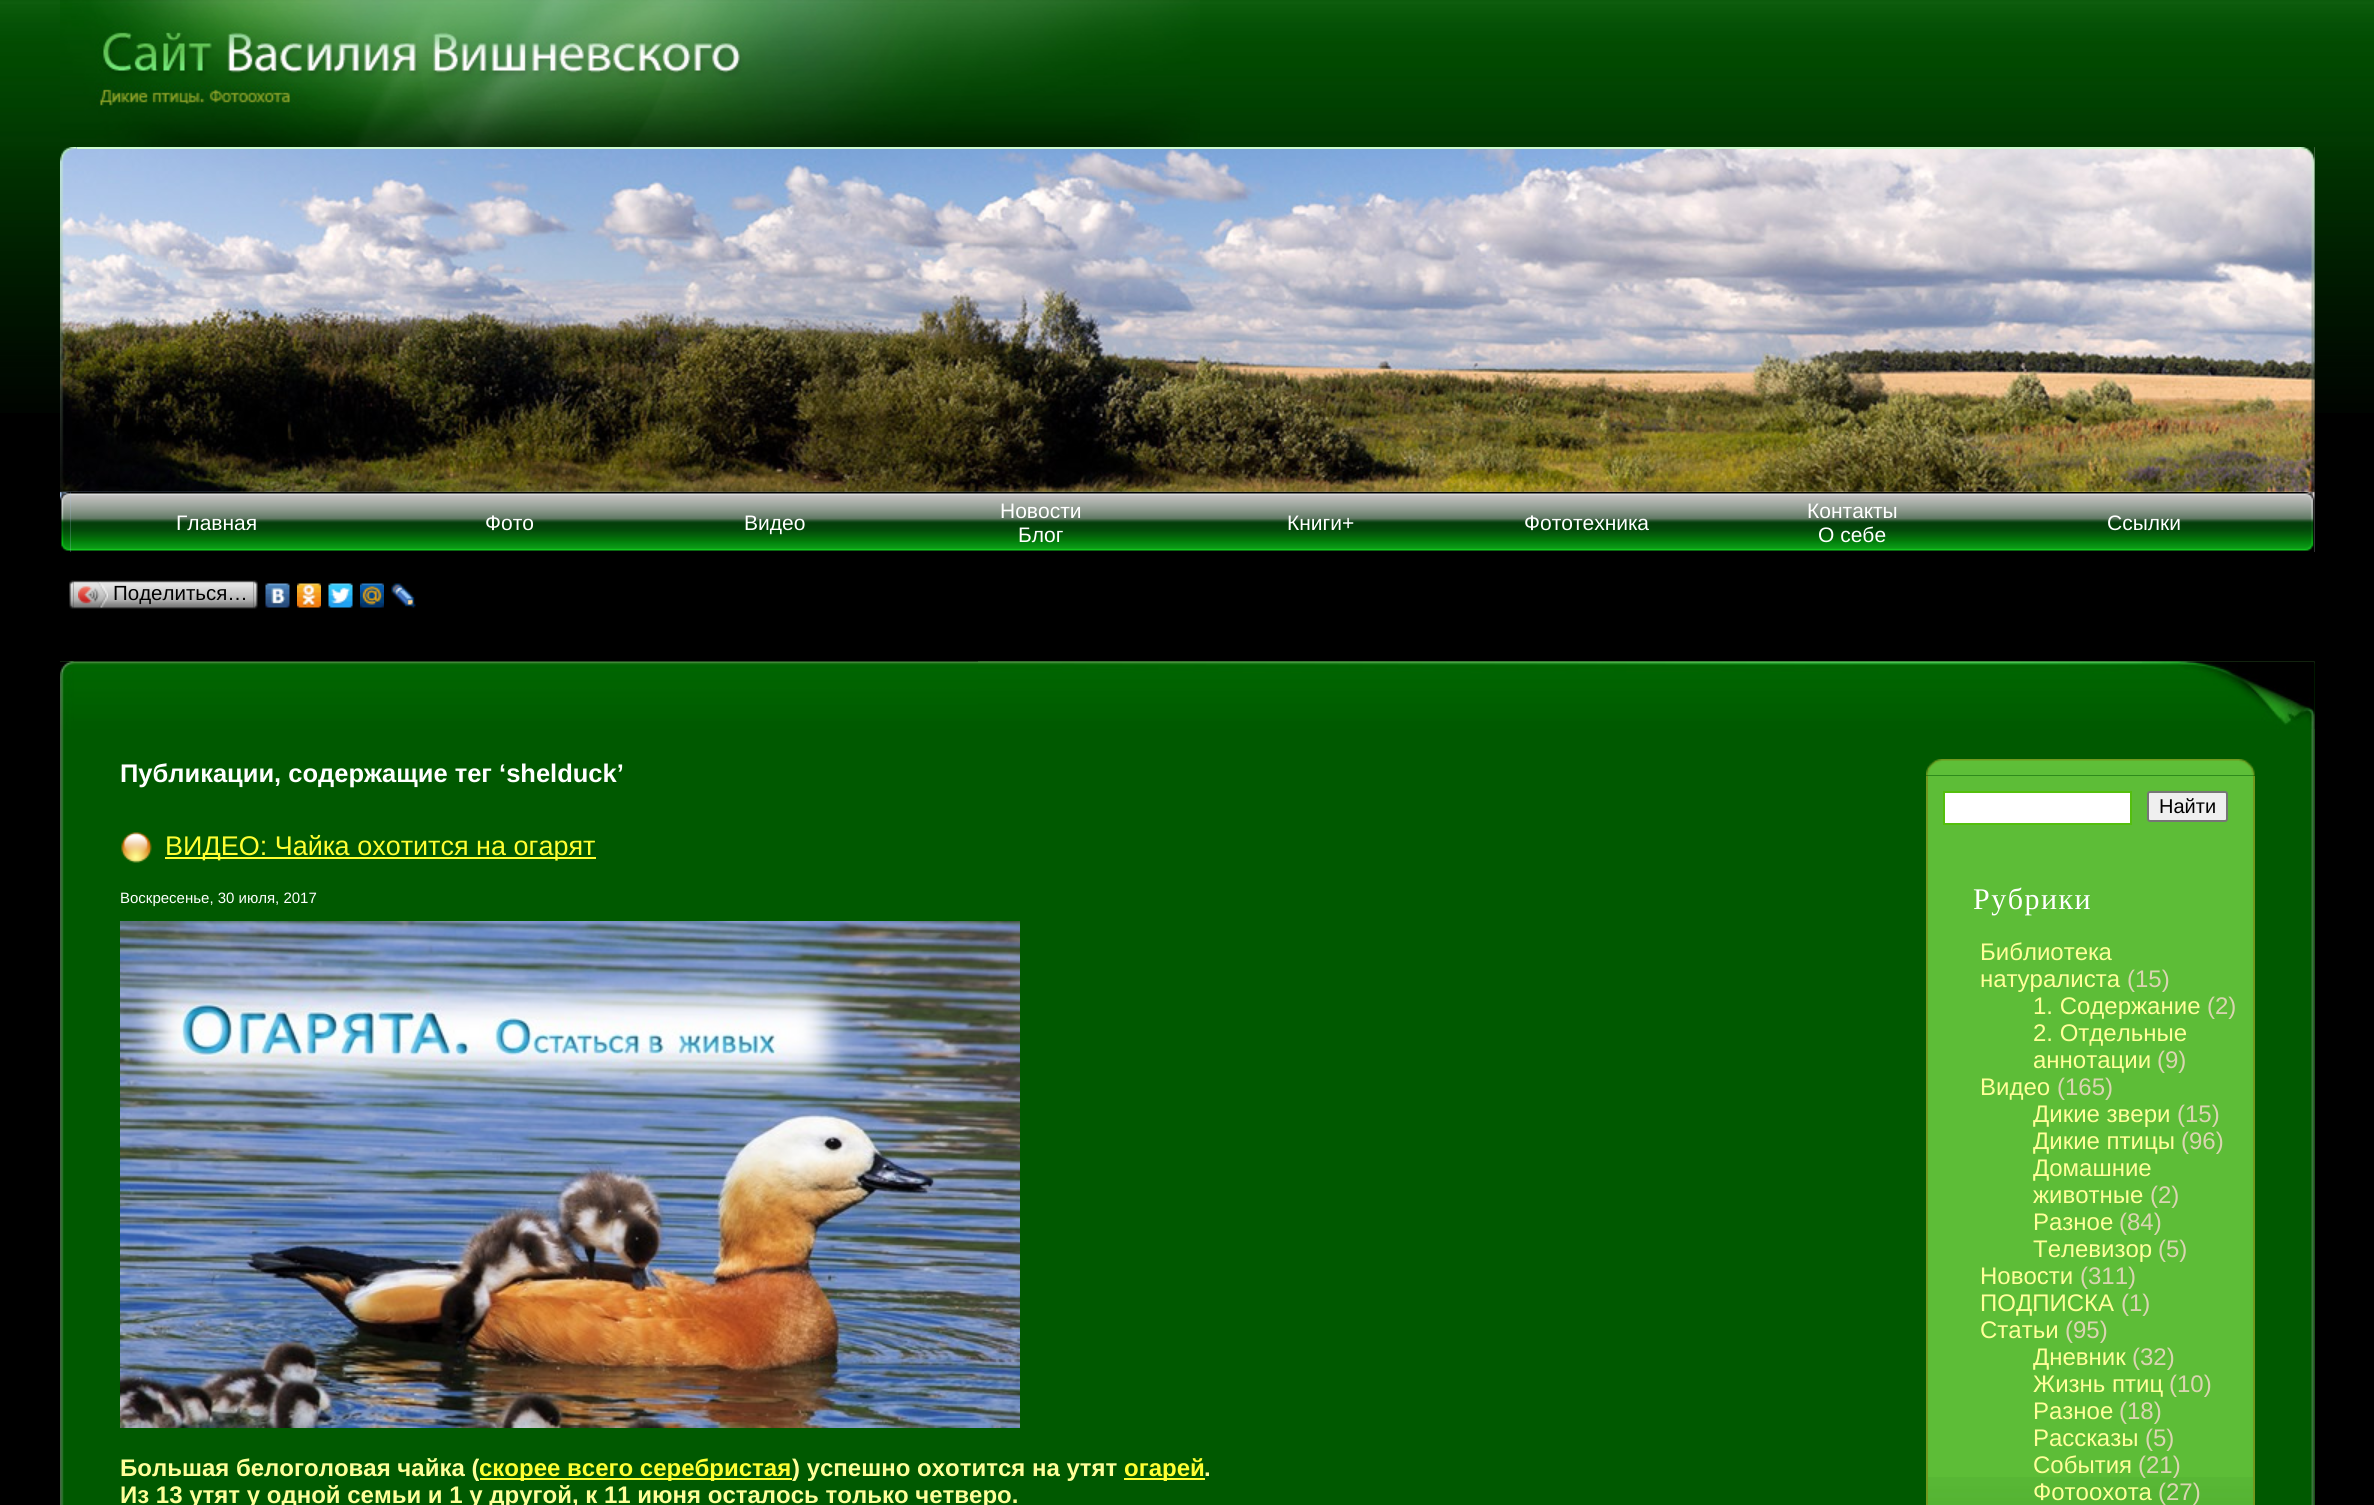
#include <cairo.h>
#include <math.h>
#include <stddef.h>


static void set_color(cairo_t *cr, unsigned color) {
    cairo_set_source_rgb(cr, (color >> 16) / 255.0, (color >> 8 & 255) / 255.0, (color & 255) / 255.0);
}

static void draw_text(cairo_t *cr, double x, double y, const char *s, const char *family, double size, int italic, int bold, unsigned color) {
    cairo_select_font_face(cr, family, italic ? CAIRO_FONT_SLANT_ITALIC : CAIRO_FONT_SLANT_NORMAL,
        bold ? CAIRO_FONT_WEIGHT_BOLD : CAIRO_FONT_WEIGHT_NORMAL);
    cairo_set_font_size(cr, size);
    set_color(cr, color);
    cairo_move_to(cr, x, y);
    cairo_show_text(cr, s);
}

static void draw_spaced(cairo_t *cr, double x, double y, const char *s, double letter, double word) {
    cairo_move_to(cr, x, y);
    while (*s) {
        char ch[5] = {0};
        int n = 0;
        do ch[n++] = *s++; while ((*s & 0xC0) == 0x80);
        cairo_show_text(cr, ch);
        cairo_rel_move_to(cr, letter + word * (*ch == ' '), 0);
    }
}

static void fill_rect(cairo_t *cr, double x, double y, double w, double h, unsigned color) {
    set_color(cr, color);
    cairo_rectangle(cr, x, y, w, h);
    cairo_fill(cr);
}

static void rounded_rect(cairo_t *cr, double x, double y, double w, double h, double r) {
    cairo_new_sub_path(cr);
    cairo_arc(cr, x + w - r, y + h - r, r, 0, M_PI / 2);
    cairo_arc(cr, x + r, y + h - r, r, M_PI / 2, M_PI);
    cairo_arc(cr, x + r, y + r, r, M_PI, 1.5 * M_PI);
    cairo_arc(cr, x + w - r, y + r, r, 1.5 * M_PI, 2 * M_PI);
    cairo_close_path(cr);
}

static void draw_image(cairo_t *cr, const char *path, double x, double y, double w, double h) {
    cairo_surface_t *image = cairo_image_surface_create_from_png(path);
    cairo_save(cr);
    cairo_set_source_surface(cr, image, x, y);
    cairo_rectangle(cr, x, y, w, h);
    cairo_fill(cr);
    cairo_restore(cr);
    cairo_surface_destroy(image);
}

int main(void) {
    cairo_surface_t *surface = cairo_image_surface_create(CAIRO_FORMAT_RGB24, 2374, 1505);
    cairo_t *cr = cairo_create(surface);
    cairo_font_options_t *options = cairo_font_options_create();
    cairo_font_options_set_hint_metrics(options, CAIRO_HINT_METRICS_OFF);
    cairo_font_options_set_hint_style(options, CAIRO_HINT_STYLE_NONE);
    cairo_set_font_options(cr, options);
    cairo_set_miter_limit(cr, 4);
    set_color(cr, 0x000000);
    cairo_paint(cr);
    draw_image(cr, "assets/img1.png", 0, 0, 2374, 413);
    draw_image(cr, "assets/img2.png", 60, 0, 1140, 147);
    draw_image(cr, "assets/img3.png", 60, 147, 2255, 405);
    draw_image(cr, "assets/img4.png", 60, 147, 17, 345);
    draw_image(cr, "assets/img5.png", 2298, 147, 17, 345);
    fill_rect(cr, 77, 147, 2221, 2, 0xD0FCD1);
    draw_image(cr, "assets/img6.png", 2304, 492, 11, 60);
    draw_image(cr, "assets/img7.png", 60, 492, 11, 60);
    draw_image(cr, "assets/img8.png", 70, 492, 2234, 60);
    draw_text(cr, 176, 530, "Главная", "Liberation Sans", 21, 0, 0, 0xFFFFFF);
    draw_text(cr, 485, 530, "Фото", "Liberation Sans", 21, 0, 0, 0xFFFFFF);
    draw_text(cr, 744, 530, "Видео", "Liberation Sans", 21, 0, 0, 0xFFFFFF);
    draw_text(cr, 1000, 518, "Новости", "Liberation Sans", 21, 0, 0, 0xFFFFFF);
    draw_text(cr, 1018, 542, "Блог", "Liberation Sans", 21, 0, 0, 0xFFFFFF);
    draw_text(cr, 1287, 530, "Книги+", "Liberation Sans", 21, 0, 0, 0xFFFFFF);
    draw_text(cr, 1524, 530, "Фототехника", "Liberation Sans", 21, 0, 0, 0xFFFFFF);
    draw_text(cr, 1807, 518, "Контакты", "Liberation Sans", 21, 0, 0, 0xFFFFFF);
    draw_text(cr, 1818, 542, "О себе", "Liberation Sans", 21, 0, 0, 0xFFFFFF);
    draw_text(cr, 2107, 530, "Ссылки", "Liberation Sans", 21, 0, 0, 0xFFFFFF);
    draw_image(cr, "assets/img9.png", 73, 580, 181, 29);
    draw_image(cr, "assets/img10.png", 69, 580, 5, 29);
    draw_image(cr, "assets/img11.png", 78, 582, 30, 26);
    draw_text(cr, 113, 600, "Поделиться…", "Liberation Sans", 20.5, 0, 0, 0x000000);
    draw_image(cr, "assets/img12.png", 253, 580, 5, 29);
    draw_image(cr, "assets/img13.png", 265, 583, 25, 25);
    draw_image(cr, "assets/img14.png", 297, 583, 24, 25);
    draw_image(cr, "assets/img15.png", 328, 583, 25, 25);
    draw_image(cr, "assets/img16.png", 360, 583, 24, 25);
    draw_image(cr, "assets/img17.png", 391, 583, 25, 25);
    draw_image(cr, "assets/img18.png", 60, 661, 2255, 68);
    draw_image(cr, "assets/img19.png", 978, 661, 1337, 68);
    draw_image(cr, "assets/img20.png", 60, 661, 14, 68);
    fill_rect(cr, 64, 729, 2251, 776, 0x005900);
    draw_image(cr, "assets/img21.png", 60, 729, 4, 776);
    draw_image(cr, "assets/img22.png", 2311, 729, 4, 776);
    draw_text(cr, 120, 782, "Публикации, содержащие тег ‘shelduck’", "Liberation Sans", 25.5, 0, 1, 0xFFFFFF);
    draw_image(cr, "assets/img23.png", 121, 832, 31, 31);
    fill_rect(cr, 165, 857, 431, 2, 0xFFFF33);
    draw_text(cr, 165, 855, "ВИДЕО: Чайка охотится на огарят", "Liberation Sans", 27, 0, 0, 0xFFFF33);
    draw_text(cr, 120, 903, "Воскресенье, 30 июля, 2017", "Liberation Sans", 15, 0, 0, 0xFFFFFF);
    draw_image(cr, "assets/img24.png", 120, 921, 900, 507);
    draw_text(cr, 120, 1476, "Большая белоголовая чайка (", "Liberation Sans", 24, 0, 1, 0xFFFF99);
    fill_rect(cr, 480, 1478, 312, 2, 0xFFFF33);
    draw_text(cr, 479, 1476, "скорее всего серебристая", "Liberation Sans", 24, 0, 1, 0xFFFF33);
    draw_text(cr, 792, 1476, ") успешно охотится на утят", "Liberation Sans", 24, 0, 1, 0xFFFF99);
    fill_rect(cr, 1124, 1478, 81, 2, 0xFFFF33);
    draw_text(cr, 1124, 1476, "огарей", "Liberation Sans", 24, 0, 1, 0xFFFF33);
    draw_text(cr, 1204, 1476, ".", "Liberation Sans", 24, 0, 1, 0xFFFF99);
    draw_text(cr, 120, 1503, "Из 13 утят у одной семьи и 1 у другой, к 11 июня осталось только четверо.", "Liberation Sans", 24, 0, 1, 0xFFFF99);
    draw_image(cr, "assets/img25.png", 1926, 759, 329, 17);
    fill_rect(cr, 1928, 776, 325, 701, 0x5DBD37);
    draw_image(cr, "assets/img26.png", 1928, 1477, 325, 28);
    fill_rect(cr, 2253, 776, 2, 729, 0x71981D);
    fill_rect(cr, 1926, 776, 2, 729, 0x71981D);
    set_color(cr, 0xFFFFFF);
    cairo_rectangle(cr, 1944, 792, 187, 32);
    cairo_fill_preserve(cr);
    set_color(cr, 0x54BF0D);
    cairo_stroke(cr);
    set_color(cr, 0xEFEFEF);
    rounded_rect(cr, 2148, 792, 79, 29, 2);
    cairo_fill_preserve(cr);
    set_color(cr, 0x767676);
    cairo_stroke(cr);
    draw_text(cr, 2159, 813, "Найти", "Liberation Sans", 20, 0, 0, 0x000000);
    cairo_select_font_face(cr, "Liberation Serif", CAIRO_FONT_SLANT_NORMAL, CAIRO_FONT_WEIGHT_NORMAL);
    cairo_set_font_size(cr, 30);
    set_color(cr, 0xFFFFFF);
    draw_spaced(cr, 1973, 909, "Рубрики", 1.5, 0);
    draw_text(cr, 1980, 960, "Библиотека", "Liberation Sans", 24, 0, 0, 0xFFFF99);
    draw_text(cr, 1980, 987, "натуралиста", "Liberation Sans", 24, 0, 0, 0xFFFF99);
    draw_text(cr, 2127, 987, "(15)", "Liberation Sans", 24, 0, 0, 0xDAD5B1);
    draw_text(cr, 2033, 1014, "1. Содержание", "Liberation Sans", 24, 0, 0, 0xFFFF99);
    draw_text(cr, 2207, 1014, "(2)", "Liberation Sans", 24, 0, 0, 0xDAD5B1);
    draw_text(cr, 2033, 1041, "2. Отдельные", "Liberation Sans", 24, 0, 0, 0xFFFF99);
    draw_text(cr, 2033, 1068, "аннотации", "Liberation Sans", 24, 0, 0, 0xFFFF99);
    draw_text(cr, 2157, 1068, "(9)", "Liberation Sans", 24, 0, 0, 0xDAD5B1);
    draw_text(cr, 1980, 1095, "Видео", "Liberation Sans", 24, 0, 0, 0xFFFF99);
    draw_text(cr, 2057, 1095, "(165)", "Liberation Sans", 24, 0, 0, 0xDAD5B1);
    draw_text(cr, 2033, 1122, "Дикие звери", "Liberation Sans", 24, 0, 0, 0xFFFF99);
    draw_text(cr, 2177, 1122, "(15)", "Liberation Sans", 24, 0, 0, 0xDAD5B1);
    draw_text(cr, 2033, 1149, "Дикие птицы", "Liberation Sans", 24, 0, 0, 0xFFFF99);
    draw_text(cr, 2181, 1149, "(96)", "Liberation Sans", 24, 0, 0, 0xDAD5B1);
    draw_text(cr, 2033, 1176, "Домашние", "Liberation Sans", 24, 0, 0, 0xFFFF99);
    draw_text(cr, 2033, 1203, "животные", "Liberation Sans", 24, 0, 0, 0xFFFF99);
    draw_text(cr, 2150, 1203, "(2)", "Liberation Sans", 24, 0, 0, 0xDAD5B1);
    draw_text(cr, 2033, 1230, "Разное", "Liberation Sans", 24, 0, 0, 0xFFFF99);
    draw_text(cr, 2119, 1230, "(84)", "Liberation Sans", 24, 0, 0, 0xDAD5B1);
    draw_text(cr, 2033, 1257, "Телевизор", "Liberation Sans", 24, 0, 0, 0xFFFF99);
    draw_text(cr, 2158, 1257, "(5)", "Liberation Sans", 24, 0, 0, 0xDAD5B1);
    draw_text(cr, 1980, 1284, "Новости", "Liberation Sans", 24, 0, 0, 0xFFFF99);
    draw_text(cr, 2080, 1284, "(311)", "Liberation Sans", 24, 0, 0, 0xDAD5B1);
    draw_text(cr, 1980, 1311, "ПОДПИСКА", "Liberation Sans", 24, 0, 0, 0xFFFF99);
    draw_text(cr, 2121, 1311, "(1)", "Liberation Sans", 24, 0, 0, 0xDAD5B1);
    draw_text(cr, 1980, 1338, "Статьи", "Liberation Sans", 24, 0, 0, 0xFFFF99);
    draw_text(cr, 2065, 1338, "(95)", "Liberation Sans", 24, 0, 0, 0xDAD5B1);
    draw_text(cr, 2033, 1365, "Дневник", "Liberation Sans", 24, 0, 0, 0xFFFF99);
    draw_text(cr, 2132, 1365, "(32)", "Liberation Sans", 24, 0, 0, 0xDAD5B1);
    draw_text(cr, 2033, 1392, "Жизнь птиц", "Liberation Sans", 24, 0, 0, 0xFFFF99);
    draw_text(cr, 2169, 1392, "(10)", "Liberation Sans", 24, 0, 0, 0xDAD5B1);
    draw_text(cr, 2033, 1419, "Разное", "Liberation Sans", 24, 0, 0, 0xFFFF99);
    draw_text(cr, 2119, 1419, "(18)", "Liberation Sans", 24, 0, 0, 0xDAD5B1);
    draw_text(cr, 2033, 1446, "Рассказы", "Liberation Sans", 24, 0, 0, 0xFFFF99);
    draw_text(cr, 2145, 1446, "(5)", "Liberation Sans", 24, 0, 0, 0xDAD5B1);
    draw_text(cr, 2033, 1473, "События", "Liberation Sans", 24, 0, 0, 0xFFFF99);
    draw_text(cr, 2138, 1473, "(21)", "Liberation Sans", 24, 0, 0, 0xDAD5B1);
    draw_text(cr, 2033, 1500, "Фотоохота", "Liberation Sans", 24, 0, 0, 0xFFFF99);
    draw_text(cr, 2158, 1500, "(27)", "Liberation Sans", 24, 0, 0, 0xDAD5B1);
    cairo_surface_write_to_png(surface, "output.png");
    cairo_font_options_destroy(options);
    cairo_destroy(cr);
    cairo_surface_destroy(surface);
    return 0;
}
